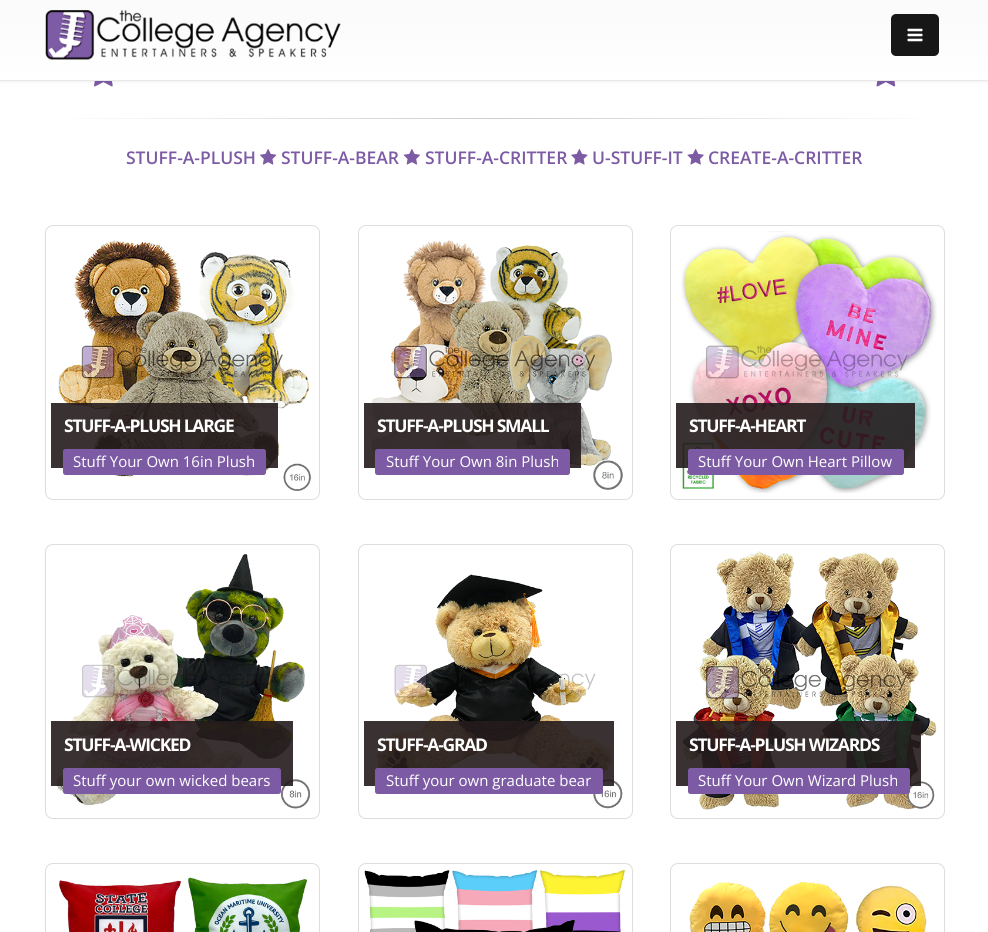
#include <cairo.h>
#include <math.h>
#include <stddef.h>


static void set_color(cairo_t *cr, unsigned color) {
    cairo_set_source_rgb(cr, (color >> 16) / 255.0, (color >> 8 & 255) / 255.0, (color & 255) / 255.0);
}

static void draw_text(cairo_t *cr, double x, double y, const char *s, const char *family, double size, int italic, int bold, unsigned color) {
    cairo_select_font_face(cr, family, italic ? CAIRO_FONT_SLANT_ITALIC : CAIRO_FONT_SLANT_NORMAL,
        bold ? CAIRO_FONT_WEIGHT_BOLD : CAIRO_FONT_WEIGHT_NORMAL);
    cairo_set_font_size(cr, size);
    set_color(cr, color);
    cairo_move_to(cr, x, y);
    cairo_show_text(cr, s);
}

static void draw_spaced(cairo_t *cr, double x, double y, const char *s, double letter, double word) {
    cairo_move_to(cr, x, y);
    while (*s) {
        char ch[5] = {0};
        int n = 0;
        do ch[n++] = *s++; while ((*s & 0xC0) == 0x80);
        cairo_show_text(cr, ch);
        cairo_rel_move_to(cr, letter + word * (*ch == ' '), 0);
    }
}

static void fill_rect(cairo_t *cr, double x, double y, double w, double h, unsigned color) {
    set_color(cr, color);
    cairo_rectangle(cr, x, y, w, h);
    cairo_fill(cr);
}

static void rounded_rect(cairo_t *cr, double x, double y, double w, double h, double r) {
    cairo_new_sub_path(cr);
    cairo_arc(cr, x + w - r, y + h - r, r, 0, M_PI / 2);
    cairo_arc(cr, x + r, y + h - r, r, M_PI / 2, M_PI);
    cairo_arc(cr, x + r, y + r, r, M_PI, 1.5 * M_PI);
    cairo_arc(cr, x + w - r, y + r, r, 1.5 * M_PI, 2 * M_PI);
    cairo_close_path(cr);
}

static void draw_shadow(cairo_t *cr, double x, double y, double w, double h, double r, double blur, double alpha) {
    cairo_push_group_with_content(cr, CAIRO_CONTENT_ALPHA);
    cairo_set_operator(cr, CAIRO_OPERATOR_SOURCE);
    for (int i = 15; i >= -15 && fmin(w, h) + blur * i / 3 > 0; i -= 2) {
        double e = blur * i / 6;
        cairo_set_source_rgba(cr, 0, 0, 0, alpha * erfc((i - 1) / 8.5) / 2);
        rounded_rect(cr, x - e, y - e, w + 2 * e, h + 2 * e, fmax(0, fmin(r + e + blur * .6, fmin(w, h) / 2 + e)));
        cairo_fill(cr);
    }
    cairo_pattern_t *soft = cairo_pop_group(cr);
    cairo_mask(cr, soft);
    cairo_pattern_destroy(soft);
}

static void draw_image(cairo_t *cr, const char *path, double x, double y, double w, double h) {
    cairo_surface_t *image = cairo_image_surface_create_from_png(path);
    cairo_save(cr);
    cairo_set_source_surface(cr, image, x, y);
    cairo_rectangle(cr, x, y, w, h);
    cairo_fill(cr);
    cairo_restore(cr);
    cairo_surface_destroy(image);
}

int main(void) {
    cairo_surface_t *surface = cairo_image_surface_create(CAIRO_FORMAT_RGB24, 988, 932);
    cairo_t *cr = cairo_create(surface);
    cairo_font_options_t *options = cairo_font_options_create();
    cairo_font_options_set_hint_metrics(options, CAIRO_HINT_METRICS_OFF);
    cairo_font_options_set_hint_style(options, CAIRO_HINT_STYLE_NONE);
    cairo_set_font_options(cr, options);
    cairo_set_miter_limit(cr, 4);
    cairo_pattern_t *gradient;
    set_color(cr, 0xFFFFFF);
    cairo_paint(cr);
    draw_image(cr, "assets/img3.png", 94, 81, 19, 6);
    draw_image(cr, "assets/img4.png", 876, 81, 20, 6);
    set_color(cr, 0x000000);
    draw_shadow(cr, 0, -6, 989, 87, 0, 2, 0.1);
    gradient = cairo_pattern_create_linear(494, -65, 494, 80);
    cairo_pattern_add_color_stop_rgba(gradient, 0, 0.965, 0.965, 0.965, 1);
    cairo_pattern_add_color_stop_rgba(gradient, 1, 1, 1, 1, 1);
    cairo_set_source(cr, gradient);
    cairo_pattern_destroy(gradient);
    cairo_rectangle(cr, 0, 0, 988, 80);
    cairo_fill(cr);
    fill_rect(cr, 0, 80, 988, 1, 0xE9E9E9);
    draw_image(cr, "assets/img1.png", 45, 10, 296, 50);
    set_color(cr, 0x171717);
    rounded_rect(cr, 891, 14, 48, 42, 5);
    cairo_fill(cr);
    draw_image(cr, "assets/img2.png", 907, 28, 16, 14);
    gradient = cairo_pattern_create_linear(45, 118, 945, 118);
    cairo_pattern_add_color_stop_rgba(gradient, 0, 1, 1, 1, 1);
    cairo_pattern_add_color_stop_rgba(gradient, 0.5, 0.8, 0.8, 0.8, 1);
    cairo_pattern_add_color_stop_rgba(gradient, 1, 1, 1, 1, 1);
    cairo_set_source(cr, gradient);
    cairo_pattern_destroy(gradient);
    cairo_rectangle(cr, 67, 118, 856, 1);
    cairo_fill(cr);
    draw_text(cr, 126, 164, "STUFF-A-PLUSH", "Open Sans SemiBold", 17.5, 0, 0, 0x7C5BA4);
    draw_image(cr, "assets/img5.png", 260, 149, 17, 16);
    draw_text(cr, 281, 164, "STUFF-A-BEAR", "Open Sans SemiBold", 17.5, 0, 0, 0x7C5BA4);
    draw_image(cr, "assets/img6.png", 403, 149, 17, 16);
    draw_text(cr, 425, 164, "STUFF-A-CRITTER", "Open Sans SemiBold", 17.5, 0, 0, 0x7C5BA4);
    draw_image(cr, "assets/img7.png", 571, 149, 17, 16);
    draw_text(cr, 592, 164, "U-STUFF-IT", "Open Sans SemiBold", 17.5, 0, 0, 0x7C5BA4);
    draw_image(cr, "assets/img8.png", 687, 149, 17, 16);
    draw_text(cr, 708, 164, "CREATE-A-CRITTER", "Open Sans SemiBold", 17.5, 0, 0, 0x7C5BA4);
    rounded_rect(cr, 45.5, 225.5, 274, 274, 7.5);
    set_color(cr, 0xDDDDDD);
    cairo_set_line_width(cr, 1);
    cairo_stroke(cr);
    draw_image(cr, "assets/img9.png", 58, 240, 254, 251);
    cairo_set_source_rgba(cr, 0.141, 0.106, 0.11, 0.9);
    cairo_rectangle(cr, 51, 403, 227, 65);
    cairo_fill(cr);
    cairo_select_font_face(cr, "Open Sans", CAIRO_FONT_SLANT_NORMAL, CAIRO_FONT_WEIGHT_BOLD);
    set_color(cr, 0xFFFFFF);
    draw_spaced(cr, 64, 432, "STUFF-A-PLUSH LARGE", -1.25, 0);
    set_color(cr, 0x7C5BA4);
    rounded_rect(cr, 63, 449, 203, 26, 2.5);
    cairo_fill(cr);
    draw_text(cr, 73, 467, "Stuff Your Own 16in Plush", "Open Sans", 15, 0, 0, 0xFFFFFF);
    rounded_rect(cr, 358.5, 225.5, 274, 274, 7.5);
    set_color(cr, 0xDDDDDD);
    cairo_stroke(cr);
    draw_image(cr, "assets/img10.png", 371, 240, 252, 250);
    cairo_set_source_rgba(cr, 0.141, 0.106, 0.11, 0.9);
    cairo_rectangle(cr, 364, 403, 217, 65);
    cairo_fill(cr);
    cairo_select_font_face(cr, "Open Sans", CAIRO_FONT_SLANT_NORMAL, CAIRO_FONT_WEIGHT_BOLD);
    cairo_set_font_size(cr, 17.5);
    set_color(cr, 0xFFFFFF);
    draw_spaced(cr, 377, 432, "STUFF-A-PLUSH SMALL", -1.25, 0);
    set_color(cr, 0x7C5BA4);
    rounded_rect(cr, 375, 449, 195, 26, 2.5);
    cairo_fill(cr);
    draw_text(cr, 386, 467, "Stuff Your Own 8in Plush", "Open Sans", 15, 0, 0, 0xFFFFFF);
    rounded_rect(cr, 670.5, 225.5, 274, 274, 7.5);
    set_color(cr, 0xDDDDDD);
    cairo_stroke(cr);
    draw_image(cr, "assets/img11.png", 681, 231, 256, 262);
    cairo_set_source_rgba(cr, 0.141, 0.106, 0.11, 0.9);
    cairo_rectangle(cr, 676, 403, 239, 65);
    cairo_fill(cr);
    cairo_select_font_face(cr, "Open Sans", CAIRO_FONT_SLANT_NORMAL, CAIRO_FONT_WEIGHT_BOLD);
    cairo_set_font_size(cr, 17.5);
    set_color(cr, 0xFFFFFF);
    draw_spaced(cr, 689, 432, "STUFF-A-HEART", -1.25, 0);
    set_color(cr, 0x7C5BA4);
    rounded_rect(cr, 688, 449, 216, 26, 2.5);
    cairo_fill(cr);
    draw_text(cr, 698, 467, "Stuff Your Own Heart Pillow", "Open Sans", 15, 0, 0, 0xFFFFFF);
    rounded_rect(cr, 45.5, 544.5, 274, 274, 7.5);
    set_color(cr, 0xDDDDDD);
    cairo_stroke(cr);
    draw_image(cr, "assets/img12.png", 56, 554, 255, 255);
    cairo_set_source_rgba(cr, 0.141, 0.106, 0.11, 0.9);
    cairo_rectangle(cr, 51, 721, 242, 65);
    cairo_fill(cr);
    cairo_select_font_face(cr, "Open Sans", CAIRO_FONT_SLANT_NORMAL, CAIRO_FONT_WEIGHT_BOLD);
    cairo_set_font_size(cr, 17.5);
    set_color(cr, 0xFFFFFF);
    draw_spaced(cr, 64, 751, "STUFF-A-WICKED", -1.25, 0);
    set_color(cr, 0x7C5BA4);
    rounded_rect(cr, 63, 768, 218, 26, 2.5);
    cairo_fill(cr);
    draw_text(cr, 73, 786, "Stuff your own wicked bears", "Open Sans", 15, 0, 0, 0xFFFFFF);
    rounded_rect(cr, 358.5, 544.5, 274, 274, 7.5);
    set_color(cr, 0xDDDDDD);
    cairo_stroke(cr);
    draw_image(cr, "assets/img13.png", 376, 574, 247, 235);
    cairo_set_source_rgba(cr, 0.141, 0.106, 0.11, 0.9);
    cairo_rectangle(cr, 364, 721, 250, 65);
    cairo_fill(cr);
    cairo_select_font_face(cr, "Open Sans", CAIRO_FONT_SLANT_NORMAL, CAIRO_FONT_WEIGHT_BOLD);
    cairo_set_font_size(cr, 17.5);
    set_color(cr, 0xFFFFFF);
    draw_spaced(cr, 377, 751, "STUFF-A-GRAD", -1.25, 0);
    set_color(cr, 0x7C5BA4);
    rounded_rect(cr, 375, 768, 228, 26, 2.5);
    cairo_fill(cr);
    draw_text(cr, 386, 786, "Stuff your own graduate bear", "Open Sans", 15, 0, 0, 0xFFFFFF);
    rounded_rect(cr, 670.5, 544.5, 274, 274, 7.5);
    set_color(cr, 0xDDDDDD);
    cairo_stroke(cr);
    draw_image(cr, "assets/img14.png", 682, 551, 255, 259);
    cairo_set_source_rgba(cr, 0.141, 0.106, 0.11, 0.9);
    cairo_rectangle(cr, 676, 721, 245, 65);
    cairo_fill(cr);
    cairo_select_font_face(cr, "Open Sans", CAIRO_FONT_SLANT_NORMAL, CAIRO_FONT_WEIGHT_BOLD);
    cairo_set_font_size(cr, 17.5);
    set_color(cr, 0xFFFFFF);
    draw_spaced(cr, 689, 751, "STUFF-A-PLUSH WIZARDS", -1.25, 0);
    set_color(cr, 0x7C5BA4);
    rounded_rect(cr, 688, 768, 222, 26, 2.5);
    cairo_fill(cr);
    draw_text(cr, 698, 786, "Stuff Your Own Wizard Plush", "Open Sans", 15, 0, 0, 0xFFFFFF);
    rounded_rect(cr, 45.5, 863.5, 274, 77, 7.5);
    set_color(cr, 0xDDDDDD);
    cairo_stroke(cr);
    draw_image(cr, "assets/img15.png", 59, 877, 249, 55);
    rounded_rect(cr, 358.5, 863.5, 274, 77, 7.5);
    cairo_stroke(cr);
    draw_image(cr, "assets/img16.png", 364, 870, 261, 62);
    rounded_rect(cr, 670.5, 863.5, 274, 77, 7.5);
    cairo_stroke(cr);
    draw_image(cr, "assets/img17.png", 689, 881, 238, 51);
    cairo_surface_write_to_png(surface, "output.png");
    cairo_font_options_destroy(options);
    cairo_destroy(cr);
    cairo_surface_destroy(surface);
    return 0;
}
